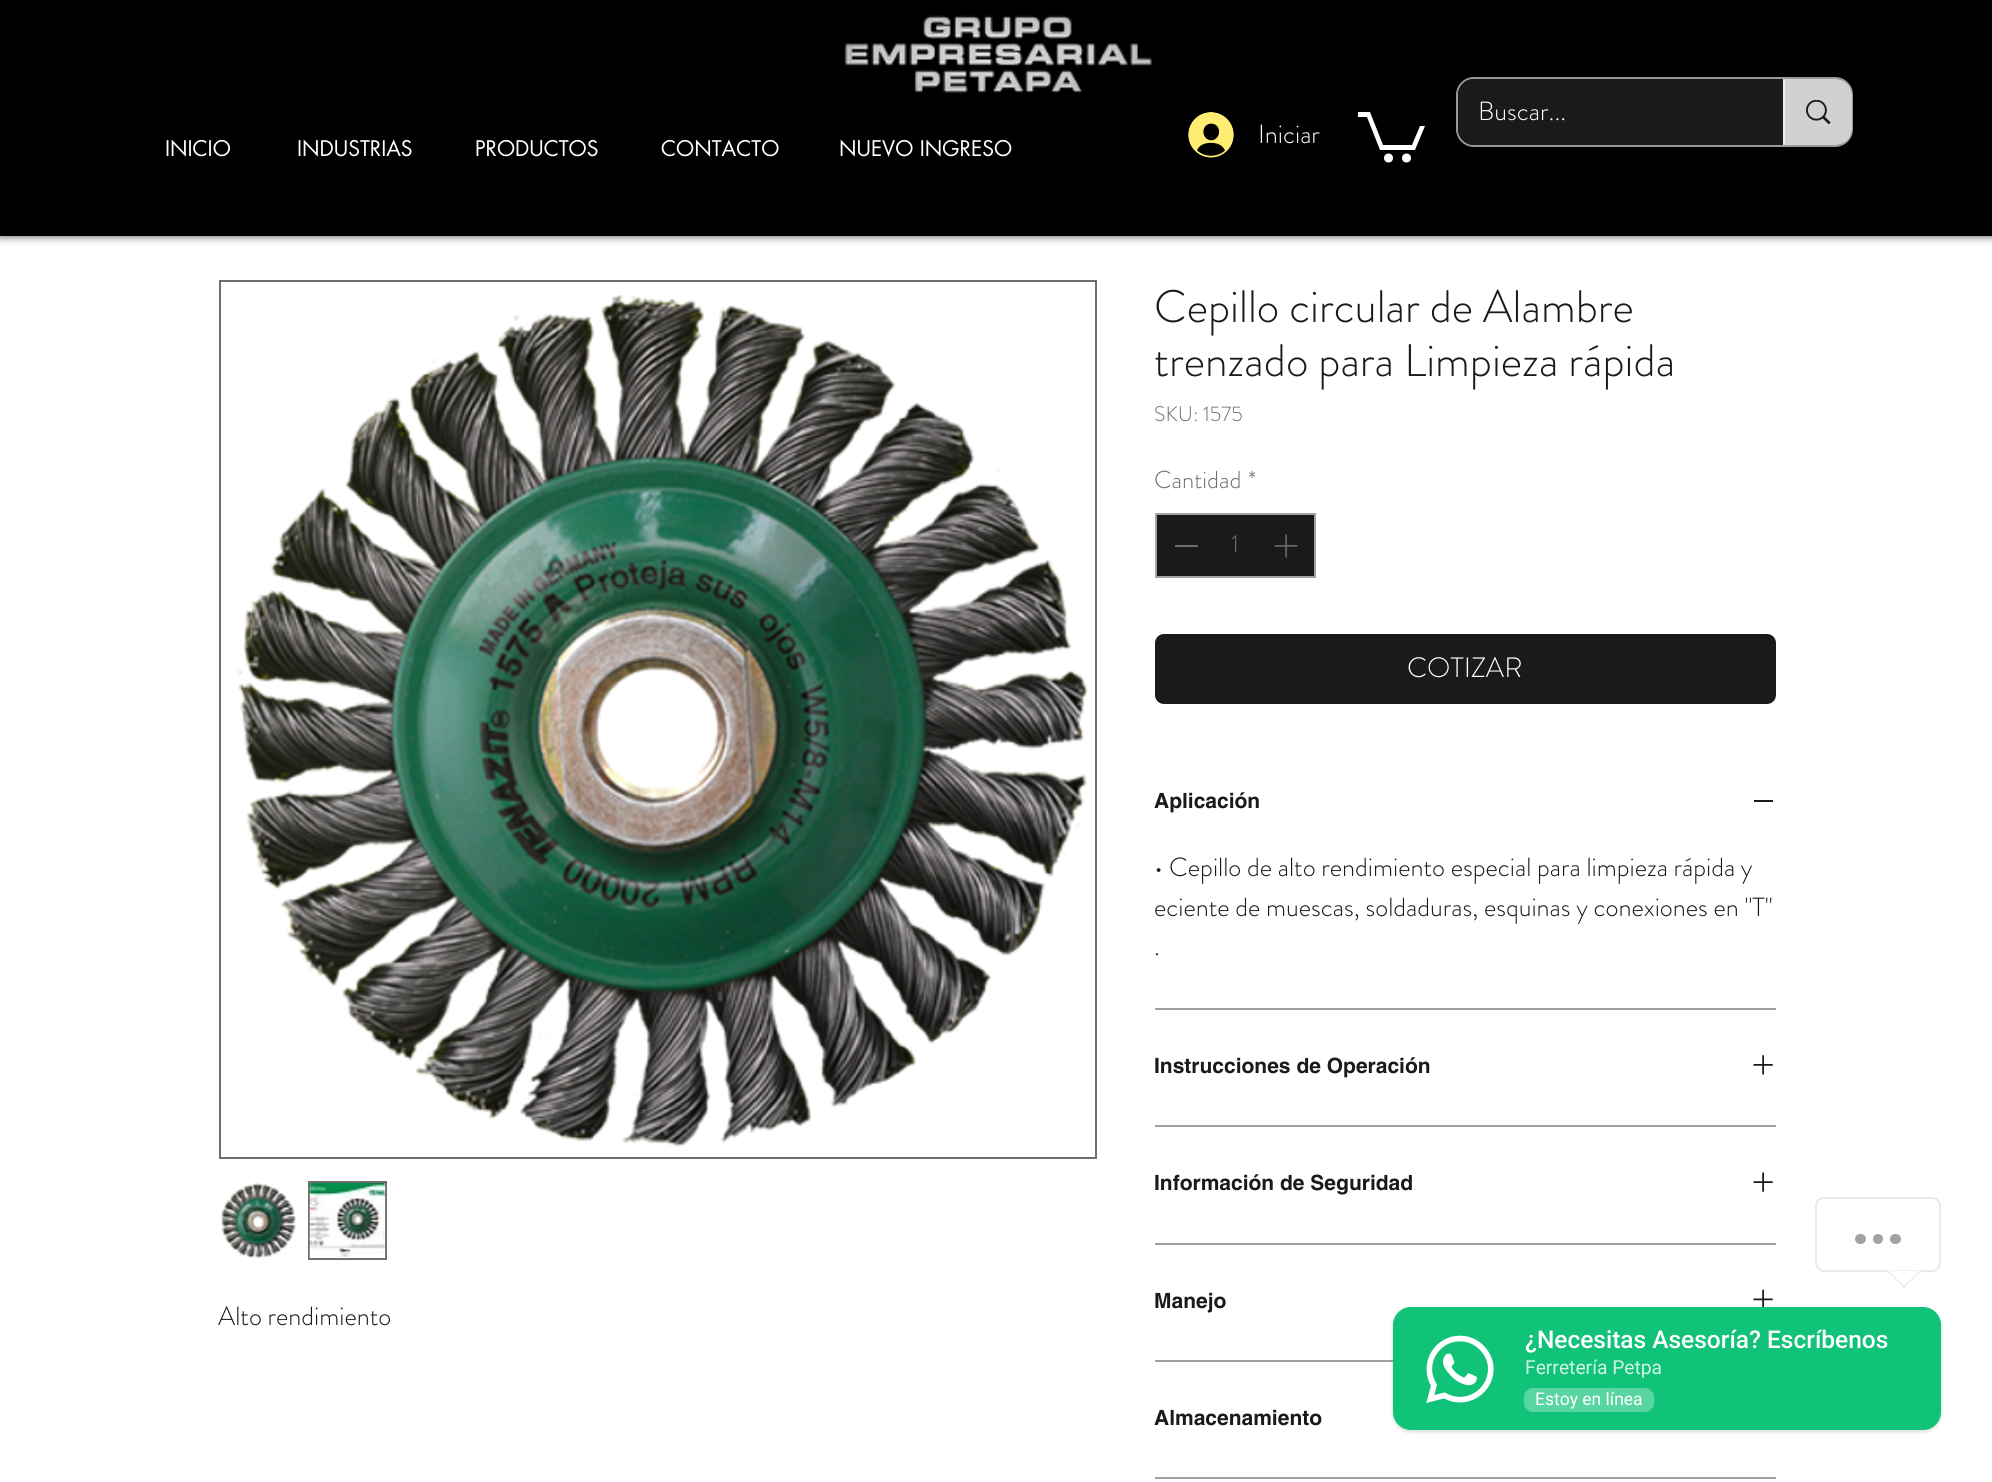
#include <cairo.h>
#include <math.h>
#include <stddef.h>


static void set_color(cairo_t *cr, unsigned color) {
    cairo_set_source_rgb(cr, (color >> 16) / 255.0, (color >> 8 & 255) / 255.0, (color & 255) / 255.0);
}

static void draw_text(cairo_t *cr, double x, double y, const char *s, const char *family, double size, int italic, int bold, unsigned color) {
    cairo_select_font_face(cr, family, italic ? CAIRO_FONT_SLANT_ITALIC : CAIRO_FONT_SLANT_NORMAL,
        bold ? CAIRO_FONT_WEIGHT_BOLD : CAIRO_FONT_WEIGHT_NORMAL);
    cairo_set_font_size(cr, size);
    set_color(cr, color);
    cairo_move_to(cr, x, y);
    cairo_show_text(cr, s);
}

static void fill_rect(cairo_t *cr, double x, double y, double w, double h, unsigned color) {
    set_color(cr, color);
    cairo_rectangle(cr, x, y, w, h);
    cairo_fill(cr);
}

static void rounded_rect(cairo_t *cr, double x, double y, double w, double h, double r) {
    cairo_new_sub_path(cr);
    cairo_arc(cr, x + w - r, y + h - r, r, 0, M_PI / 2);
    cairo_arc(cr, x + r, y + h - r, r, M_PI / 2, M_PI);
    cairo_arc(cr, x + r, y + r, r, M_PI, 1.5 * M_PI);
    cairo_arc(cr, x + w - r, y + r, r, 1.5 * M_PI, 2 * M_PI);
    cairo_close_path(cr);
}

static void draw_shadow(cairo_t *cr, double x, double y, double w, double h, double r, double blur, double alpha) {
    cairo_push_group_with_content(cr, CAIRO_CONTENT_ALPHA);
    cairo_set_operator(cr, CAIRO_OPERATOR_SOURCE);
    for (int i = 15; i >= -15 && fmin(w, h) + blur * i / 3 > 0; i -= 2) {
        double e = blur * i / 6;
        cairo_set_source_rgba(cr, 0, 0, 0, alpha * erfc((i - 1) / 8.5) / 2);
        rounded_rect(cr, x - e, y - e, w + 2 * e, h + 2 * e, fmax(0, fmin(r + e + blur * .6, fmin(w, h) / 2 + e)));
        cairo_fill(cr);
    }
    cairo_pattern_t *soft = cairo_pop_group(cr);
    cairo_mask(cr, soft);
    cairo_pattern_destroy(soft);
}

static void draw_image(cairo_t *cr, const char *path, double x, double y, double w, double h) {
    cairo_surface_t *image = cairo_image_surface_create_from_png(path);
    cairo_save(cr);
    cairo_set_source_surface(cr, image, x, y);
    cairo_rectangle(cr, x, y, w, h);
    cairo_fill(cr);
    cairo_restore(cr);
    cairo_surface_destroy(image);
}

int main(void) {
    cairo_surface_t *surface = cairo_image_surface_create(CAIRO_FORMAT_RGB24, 1992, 1482);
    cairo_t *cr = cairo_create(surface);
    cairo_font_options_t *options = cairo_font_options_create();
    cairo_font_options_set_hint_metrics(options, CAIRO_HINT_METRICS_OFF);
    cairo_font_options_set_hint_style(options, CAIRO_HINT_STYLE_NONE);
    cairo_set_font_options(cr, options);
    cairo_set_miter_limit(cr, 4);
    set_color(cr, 0xFFFFFF);
    cairo_paint(cr);
    set_color(cr, 0x000000);
    draw_shadow(cr, 0, 0, 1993, 236, 0, 4.5, 0.7);
    fill_rect(cr, 0, 0, 1992, 236, 0x000000);
    draw_image(cr, "assets/img1.png", 844, 15, 308, 79);
    draw_image(cr, "assets/img2.png", 1188, 112, 46, 46);
    draw_text(cr, 1258, 143, "Iniciar", "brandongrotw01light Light", 26.25, 0, 0, 0xFFFFFF);
    cairo_new_path(cr);
    cairo_move_to(cr, 1425, 126);
    cairo_line_to(cr, 1415, 150);
    cairo_line_to(cr, 1380, 150);
    cairo_line_to(cr, 1367, 117);
    cairo_line_to(cr, 1358, 117);
    cairo_line_to(cr, 1358, 112);
    cairo_line_to(cr, 1370, 112);
    cairo_line_to(cr, 1383, 145);
    cairo_line_to(cr, 1412, 145);
    cairo_line_to(cr, 1420, 126);
    cairo_fill(cr);
    cairo_arc(cr, 1406.5, 158, 4.5, 0, 2 * M_PI);
    cairo_fill(cr);
    cairo_arc(cr, 1388.5, 158, 4.5, 0, 2 * M_PI);
    cairo_fill(cr);
    rounded_rect(cr, 1457, 78, 395, 68, 17);
    set_color(cr, 0x999999);
    cairo_stroke(cr);
    set_color(cr, 0x1A1A1A);
    rounded_rect(cr, 1458, 79, 394, 66, 16);
    cairo_fill(cr);
    draw_text(cr, 1478, 120, "Buscar...", "brandongrotw01light Light", 26.25, 0, 0, 0xFFFFFF);
    cairo_set_source_rgba(cr, 1, 1, 1, 0.8);
    cairo_new_path(cr);
    cairo_move_to(cr, 1783, 79);
    cairo_line_to(cr, 1836, 79);
    cairo_curve_to(cr, 1845, 79, 1852, 86, 1852, 95);
    cairo_line_to(cr, 1852, 129);
    cairo_curve_to(cr, 1852, 138, 1845, 145, 1836, 145);
    cairo_line_to(cr, 1783, 145);
    cairo_close_path(cr);
    cairo_fill(cr);
    fill_rect(cr, 1783, 79, 2, 66, 0xEDEDED);
    draw_image(cr, "assets/img3.png", 1806, 100, 25, 24);
    draw_text(cr, 165, 156, "INICIO", "futura", 21, 0, 0, 0xFFFFFF);
    draw_text(cr, 297, 156, "INDUSTRIAS", "futura", 21, 0, 0, 0xFFFFFF);
    draw_text(cr, 475, 156, "PRODUCTOS", "futura", 21, 0, 0, 0xFFFFFF);
    draw_text(cr, 661, 156, "CONTACTO", "futura", 21, 0, 0, 0xFFFFFF);
    draw_text(cr, 839, 156, "NUEVO INGRESO", "futura", 21, 0, 0, 0xFFFFFF);
    cairo_rectangle(cr, 220, 281, 876, 877);
    set_color(cr, 0x6E6E6E);
    cairo_stroke(cr);
    draw_image(cr, "assets/img4.png", 237, 287, 851, 860);
    draw_image(cr, "assets/img5.png", 221, 1183, 75, 75);
    cairo_rectangle(cr, 309, 1182, 77, 77);
    cairo_stroke(cr);
    draw_image(cr, "assets/img6.png", 309, 1183, 77, 76);
    draw_text(cr, 218, 1325, "Alto rendimiento", "brandongrotw01light Light", 26.25, 0, 0, 0x1A1A1A);
    draw_text(cr, 1154, 322, "Cepillo circular de Alambre", "brandongrotw01light Light", 45.5, 0, 0, 0x1A1A1A);
    draw_text(cr, 1154, 376, "trenzado para Limpieza rápida", "brandongrotw01light Light", 45.5, 0, 0, 0x1A1A1A);
    draw_text(cr, 1154, 421, "SKU: 1575", "brandongrotw01light Light", 21, 0, 0, 0x6E6E6E);
    draw_text(cr, 1154, 488, "Cantidad", "brandongrotw01light Light", 24.5, 0, 0, 0x6E6E6E);
    draw_text(cr, 1248, 488, "*", "brandongrotw01light Light", 24.5, 0, 0, 0x6E6E6E);
    set_color(cr, 0x1A1A1A);
    cairo_rectangle(cr, 1156, 514, 159, 63);
    cairo_fill_preserve(cr);
    set_color(cr, 0xA3A3A3);
    cairo_stroke(cr);
    fill_rect(cr, 1175, 545, 23, 2, 0x6E6E6E);
    draw_text(cr, 1231, 552, "1", "brandongrotw01light Light", 24.5, 0, 0, 0x6E6E6E);
    draw_image(cr, "assets/img7.png", 1274, 534, 24, 24);
    set_color(cr, 0x1A1A1A);
    rounded_rect(cr, 1155, 634, 621, 70, 9);
    cairo_fill(cr);
    draw_text(cr, 1407, 677, "COTIZAR", "brandongrotw01light Light", 28, 0, 0, 0xFFFFFF);
    fill_rect(cr, 1155, 1008, 621, 2, 0xA0A09F);
    draw_text(cr, 1154, 808, "Aplicación", "helvetica", 21, 0, 1, 0x1A1A1A);
    fill_rect(cr, 1754, 800, 19, 2, 0x1A1A1A);
    draw_text(cr, 1154, 876, "• Cepillo de alto rendimiento especial para limpieza rápida y", "brandongrotw01light Light", 26.25, 0, 0, 0x1A1A1A);
    draw_text(cr, 1154, 916, "eciente de muescas, soldaduras, esquinas y conexiones en \"T\"", "brandongrotw01light Light", 26.25, 0, 0, 0x1A1A1A);
    draw_text(cr, 1154, 955, ".", "brandongrotw01light Light", 26.25, 0, 0, 0x1A1A1A);
    fill_rect(cr, 1155, 1125, 621, 2, 0xA0A09F);
    draw_text(cr, 1154, 1073, "Instrucciones de Operación", "helvetica", 21, 0, 1, 0x1A1A1A);
    draw_image(cr, "assets/img8.png", 1753, 1055, 20, 20);
    fill_rect(cr, 1155, 1243, 621, 2, 0xA0A09F);
    draw_text(cr, 1154, 1190, "Información de Seguridad", "helvetica", 21, 0, 1, 0x1A1A1A);
    draw_image(cr, "assets/img9.png", 1753, 1172, 20, 20);
    fill_rect(cr, 1155, 1360, 238, 2, 0xA0A09F);
    draw_text(cr, 1154, 1308, "Manejo", "helvetica", 21, 0, 1, 0x1A1A1A);
    draw_image(cr, "assets/img10.png", 1753, 1289, 20, 18);
    fill_rect(cr, 1155, 1477, 621, 2, 0xA0A09F);
    draw_text(cr, 1154, 1425, "Almacenamiento", "helvetica", 21, 0, 1, 0x1A1A1A);
    rounded_rect(cr, 1816, 1198, 124, 73, 8);
    set_color(cr, 0xE9E9E9);
    cairo_stroke(cr);
    set_color(cr, 0x9FA4A8);
    rounded_rect(cr, 1855, 1234, 11, 10, 5);
    cairo_fill(cr);
    cairo_arc(cr, 1878, 1239, 5, 0, 2 * M_PI);
    cairo_fill(cr);
    rounded_rect(cr, 1890, 1234, 11, 10, 5);
    cairo_fill(cr);
    set_color(cr, 0xE9E9E9);
    cairo_new_path(cr);
    cairo_move_to(cr, 1886.5, 1270.5);
    cairo_line_to(cr, 1921.5, 1270.5);
    cairo_line_to(cr, 1904, 1288);
    cairo_close_path(cr);
    cairo_fill(cr);
    set_color(cr, 0xFFFFFF);
    cairo_new_path(cr);
    cairo_move_to(cr, 1888, 1270.5);
    cairo_line_to(cr, 1920, 1270.5);
    cairo_line_to(cr, 1904, 1286);
    cairo_close_path(cr);
    cairo_fill(cr);
    set_color(cr, 0x000000);
    draw_shadow(cr, 1393, 1309, 548, 123, 18, 2, 0.15);
    set_color(cr, 0x10C379);
    rounded_rect(cr, 1393, 1307, 548, 123, 18);
    cairo_fill(cr);
    draw_image(cr, "assets/img11.png", 1426, 1335, 68, 68);
    draw_text(cr, 1525, 1348, "¿Necesitas Asesoría? Escríbenos", "Roboto Medium", 24.5, 0, 0, 0xFFFFFF);
    draw_text(cr, 1525, 1374, "Ferretería Petpa", "Roboto", 19.25, 0, 0, 0xCFF3E4);
    set_color(cr, 0x58D5A1);
    rounded_rect(cr, 1524, 1388, 130, 24, 9);
    cairo_fill(cr);
    draw_text(cr, 1535, 1405, "Estoy en línea", "Roboto", 17.5, 0, 0, 0xFFFFFF);
    cairo_surface_write_to_png(surface, "output.png");
    cairo_font_options_destroy(options);
    cairo_destroy(cr);
    cairo_surface_destroy(surface);
    return 0;
}
